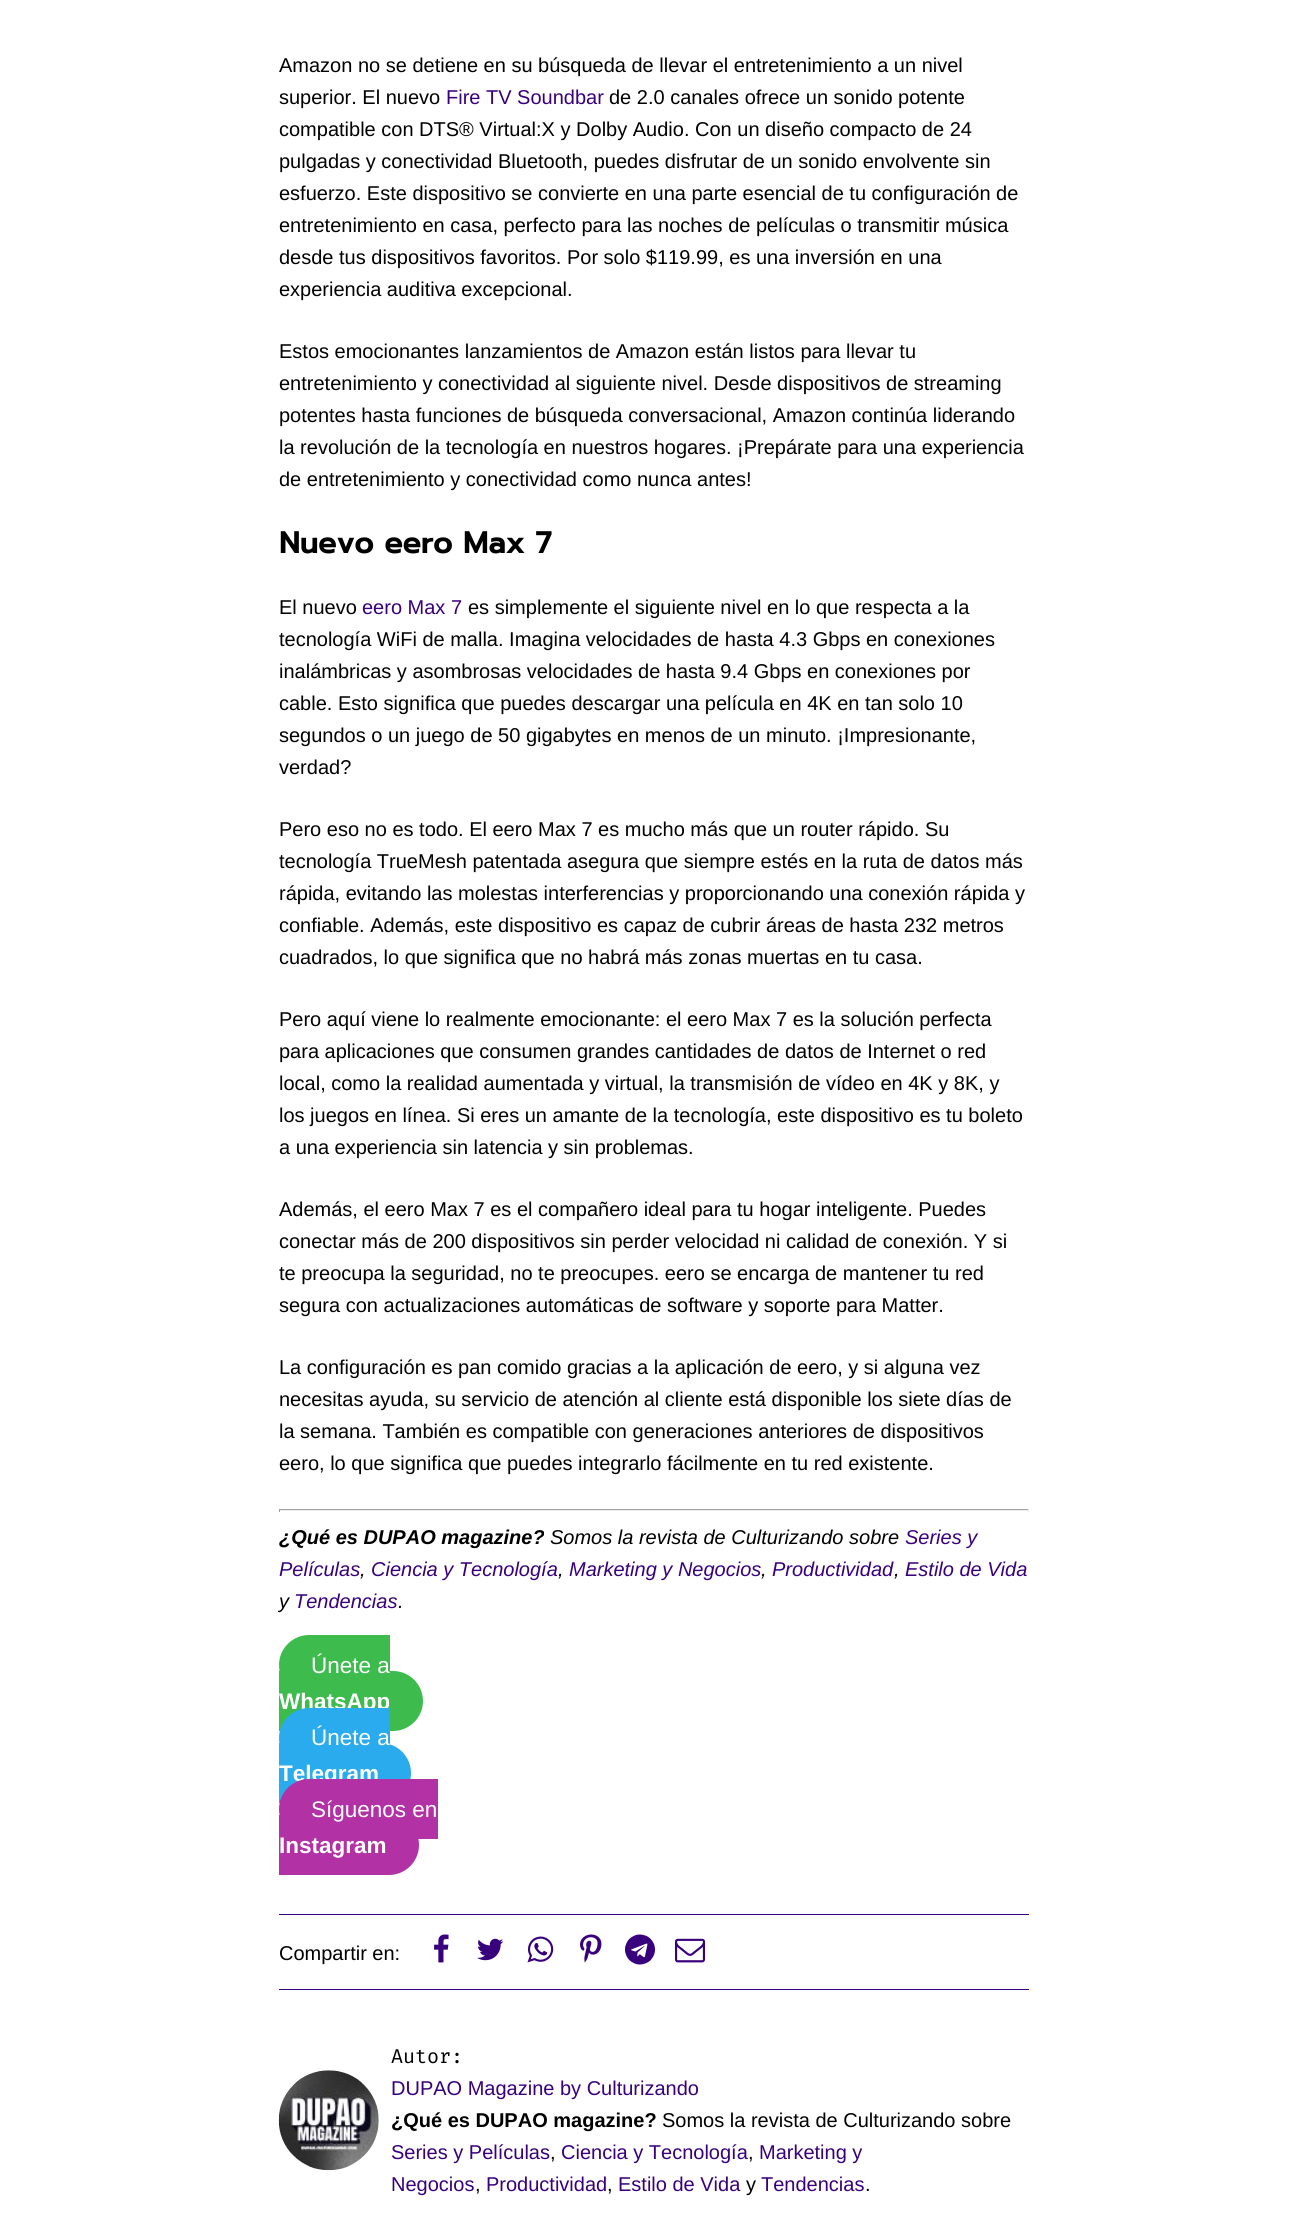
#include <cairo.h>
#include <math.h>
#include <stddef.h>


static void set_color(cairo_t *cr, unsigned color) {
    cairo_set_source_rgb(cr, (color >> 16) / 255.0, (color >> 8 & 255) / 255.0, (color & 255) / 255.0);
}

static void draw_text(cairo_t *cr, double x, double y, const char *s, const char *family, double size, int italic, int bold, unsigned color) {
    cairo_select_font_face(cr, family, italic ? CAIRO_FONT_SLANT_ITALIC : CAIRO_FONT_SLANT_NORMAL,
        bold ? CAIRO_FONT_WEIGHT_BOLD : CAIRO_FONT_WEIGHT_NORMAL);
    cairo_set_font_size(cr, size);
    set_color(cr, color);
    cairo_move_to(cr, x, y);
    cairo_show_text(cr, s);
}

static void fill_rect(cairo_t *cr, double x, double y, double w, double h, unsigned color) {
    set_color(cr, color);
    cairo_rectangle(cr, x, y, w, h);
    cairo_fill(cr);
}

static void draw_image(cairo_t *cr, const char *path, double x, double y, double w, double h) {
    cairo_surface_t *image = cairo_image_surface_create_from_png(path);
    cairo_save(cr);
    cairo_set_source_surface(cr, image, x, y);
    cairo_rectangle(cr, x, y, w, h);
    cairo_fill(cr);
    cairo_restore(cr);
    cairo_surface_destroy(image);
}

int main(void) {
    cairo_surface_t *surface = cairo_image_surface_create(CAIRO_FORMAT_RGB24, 1307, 2216);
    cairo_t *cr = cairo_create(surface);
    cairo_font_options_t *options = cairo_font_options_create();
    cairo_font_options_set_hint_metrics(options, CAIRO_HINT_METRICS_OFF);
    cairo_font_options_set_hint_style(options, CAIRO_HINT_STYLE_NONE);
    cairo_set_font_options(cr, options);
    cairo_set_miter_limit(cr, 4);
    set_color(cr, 0xFFFFFF);
    cairo_paint(cr);
    draw_text(cr, 279, 72, "Amazon no se detiene en su búsqueda de llevar el entretenimiento a un nivel", "Liberation Sans", 20, 0, 0, 0x000000);
    draw_text(cr, 279, 104, "superior. El nuevo", "Liberation Sans", 20, 0, 0, 0x000000);
    draw_text(cr, 446, 104, "Fire TV Soundbar", "Liberation Sans", 20, 0, 0, 0x38007D);
    draw_text(cr, 609, 104, "de 2.0 canales ofrece un sonido potente", "Liberation Sans", 20, 0, 0, 0x000000);
    draw_text(cr, 279, 136, "compatible con DTS® Virtual:X y Dolby Audio. Con un diseño compacto de 24", "Liberation Sans", 20, 0, 0, 0x000000);
    draw_text(cr, 279, 168, "pulgadas y conectividad Bluetooth, puedes disfrutar de un sonido envolvente sin", "Liberation Sans", 20, 0, 0, 0x000000);
    draw_text(cr, 279, 200, "esfuerzo. Este dispositivo se convierte en una parte esencial de tu configuración de", "Liberation Sans", 20, 0, 0, 0x000000);
    draw_text(cr, 279, 232, "entretenimiento en casa, perfecto para las noches de películas o transmitir música", "Liberation Sans", 20, 0, 0, 0x000000);
    draw_text(cr, 279, 264, "desde tus dispositivos favoritos. Por solo $119.99, es una inversión en una", "Liberation Sans", 20, 0, 0, 0x000000);
    draw_text(cr, 279, 296, "experiencia auditiva excepcional.", "Liberation Sans", 20, 0, 0, 0x000000);
    draw_text(cr, 279, 358, "Estos emocionantes lanzamientos de Amazon están listos para llevar tu", "Liberation Sans", 20, 0, 0, 0x000000);
    draw_text(cr, 279, 390, "entretenimiento y conectividad al siguiente nivel. Desde dispositivos de streaming", "Liberation Sans", 20, 0, 0, 0x000000);
    draw_text(cr, 279, 422, "potentes hasta funciones de búsqueda conversacional, Amazon continúa liderando", "Liberation Sans", 20, 0, 0, 0x000000);
    draw_text(cr, 279, 454, "la revolución de la tecnología en nuestros hogares. ¡Prepárate para una experiencia", "Liberation Sans", 20, 0, 0, 0x000000);
    draw_text(cr, 279, 486, "de entretenimiento y conectividad como nunca antes!", "Liberation Sans", 20, 0, 0, 0x000000);
    draw_text(cr, 279, 553, "Nuevo eero Max 7", "Prompt", 30, 0, 1, 0x000000);
    draw_text(cr, 279, 614, "El nuevo", "Liberation Sans", 20, 0, 0, 0x000000);
    draw_text(cr, 362, 614, "eero Max 7", "Liberation Sans", 20, 0, 0, 0x38007D);
    draw_text(cr, 468, 614, "es simplemente el siguiente nivel en lo que respecta a la", "Liberation Sans", 20, 0, 0, 0x000000);
    draw_text(cr, 279, 646, "tecnología WiFi de malla. Imagina velocidades de hasta 4.3 Gbps en conexiones", "Liberation Sans", 20, 0, 0, 0x000000);
    draw_text(cr, 279, 678, "inalámbricas y asombrosas velocidades de hasta 9.4 Gbps en conexiones por", "Liberation Sans", 20, 0, 0, 0x000000);
    draw_text(cr, 279, 710, "cable. Esto significa que puedes descargar una película en 4K en tan solo 10", "Liberation Sans", 20, 0, 0, 0x000000);
    draw_text(cr, 279, 742, "segundos o un juego de 50 gigabytes en menos de un minuto. ¡Impresionante,", "Liberation Sans", 20, 0, 0, 0x000000);
    draw_text(cr, 279, 774, "verdad?", "Liberation Sans", 20, 0, 0, 0x000000);
    draw_text(cr, 279, 836, "Pero eso no es todo. El eero Max 7 es mucho más que un router rápido. Su", "Liberation Sans", 20, 0, 0, 0x000000);
    draw_text(cr, 279, 868, "tecnología TrueMesh patentada asegura que siempre estés en la ruta de datos más", "Liberation Sans", 20, 0, 0, 0x000000);
    draw_text(cr, 279, 900, "rápida, evitando las molestas interferencias y proporcionando una conexión rápida y", "Liberation Sans", 20, 0, 0, 0x000000);
    draw_text(cr, 279, 932, "confiable. Además, este dispositivo es capaz de cubrir áreas de hasta 232 metros", "Liberation Sans", 20, 0, 0, 0x000000);
    draw_text(cr, 279, 964, "cuadrados, lo que significa que no habrá más zonas muertas en tu casa.", "Liberation Sans", 20, 0, 0, 0x000000);
    draw_text(cr, 279, 1026, "Pero aquí viene lo realmente emocionante: el eero Max 7 es la solución perfecta", "Liberation Sans", 20, 0, 0, 0x000000);
    draw_text(cr, 279, 1058, "para aplicaciones que consumen grandes cantidades de datos de Internet o red", "Liberation Sans", 20, 0, 0, 0x000000);
    draw_text(cr, 279, 1090, "local, como la realidad aumentada y virtual, la transmisión de vídeo en 4K y 8K, y", "Liberation Sans", 20, 0, 0, 0x000000);
    draw_text(cr, 279, 1122, "los juegos en línea. Si eres un amante de la tecnología, este dispositivo es tu boleto", "Liberation Sans", 20, 0, 0, 0x000000);
    draw_text(cr, 279, 1154, "a una experiencia sin latencia y sin problemas.", "Liberation Sans", 20, 0, 0, 0x000000);
    draw_text(cr, 279, 1216, "Además, el eero Max 7 es el compañero ideal para tu hogar inteligente. Puedes", "Liberation Sans", 20, 0, 0, 0x000000);
    draw_text(cr, 279, 1248, "conectar más de 200 dispositivos sin perder velocidad ni calidad de conexión. Y si", "Liberation Sans", 20, 0, 0, 0x000000);
    draw_text(cr, 279, 1280, "te preocupa la seguridad, no te preocupes. eero se encarga de mantener tu red", "Liberation Sans", 20, 0, 0, 0x000000);
    draw_text(cr, 279, 1312, "segura con actualizaciones automáticas de software y soporte para Matter.", "Liberation Sans", 20, 0, 0, 0x000000);
    draw_text(cr, 279, 1374, "La configuración es pan comido gracias a la aplicación de eero, y si alguna vez", "Liberation Sans", 20, 0, 0, 0x000000);
    draw_text(cr, 279, 1406, "necesitas ayuda, su servicio de atención al cliente está disponible los siete días de", "Liberation Sans", 20, 0, 0, 0x000000);
    draw_text(cr, 279, 1438, "la semana. También es compatible con generaciones anteriores de dispositivos", "Liberation Sans", 20, 0, 0, 0x000000);
    draw_text(cr, 279, 1470, "eero, lo que significa que puedes integrarlo fácilmente en tu red existente.", "Liberation Sans", 20, 0, 0, 0x000000);
    fill_rect(cr, 279, 1509, 750, 1, 0x9F9F9F);
    fill_rect(cr, 1028, 1509, 1, 3, 0xEEEEEE);
    fill_rect(cr, 279, 1510, 750, 1, 0xEEEEEE);
    fill_rect(cr, 279, 1509, 1, 3, 0x9F9F9F);
    draw_text(cr, 279, 1544, "¿Qué es DUPAO magazine?", "Liberation Sans", 20, 1, 1, 0x000000);
    draw_text(cr, 550, 1544, "Somos la revista de Culturizando sobre", "Liberation Sans", 20, 1, 0, 0x000000);
    draw_text(cr, 905, 1544, "Series y", "Liberation Sans", 20, 1, 0, 0x38007D);
    draw_text(cr, 279, 1576, "Películas", "Liberation Sans", 20, 1, 0, 0x38007D);
    draw_text(cr, 360, 1576, ",", "Liberation Sans", 20, 1, 0, 0x000000);
    draw_text(cr, 371, 1576, "Ciencia y Tecnología", "Liberation Sans", 20, 1, 0, 0x38007D);
    draw_text(cr, 558, 1576, ",", "Liberation Sans", 20, 1, 0, 0x000000);
    draw_text(cr, 569, 1576, "Marketing y Negocios", "Liberation Sans", 20, 1, 0, 0x38007D);
    draw_text(cr, 761, 1576, ",", "Liberation Sans", 20, 1, 0, 0x000000);
    draw_text(cr, 772, 1576, "Productividad", "Liberation Sans", 20, 1, 0, 0x38007D);
    draw_text(cr, 894, 1576, ",", "Liberation Sans", 20, 1, 0, 0x000000);
    draw_text(cr, 905, 1576, "Estilo de Vida", "Liberation Sans", 20, 1, 0, 0x38007D);
    draw_text(cr, 279, 1608, "y", "Liberation Sans", 20, 1, 0, 0x000000);
    draw_text(cr, 294, 1608, "Tendencias", "Liberation Sans", 20, 1, 0, 0x38007D);
    draw_text(cr, 398, 1608, ".", "Liberation Sans", 20, 1, 0, 0x000000);
    set_color(cr, 0x3DBC4D);
    cairo_new_path(cr);
    cairo_move_to(cr, 309, 1635);
    cairo_line_to(cr, 390, 1635);
    cairo_line_to(cr, 390, 1695);
    cairo_line_to(cr, 309, 1695);
    cairo_curve_to(cr, 292.5, 1695, 279, 1681.5, 279, 1665);
    cairo_curve_to(cr, 279, 1648.5, 292.5, 1635, 309, 1635);
    cairo_close_path(cr);
    cairo_fill(cr);
    cairo_new_path(cr);
    cairo_move_to(cr, 279, 1671);
    cairo_line_to(cr, 393, 1671);
    cairo_curve_to(cr, 409.5, 1671, 423, 1684.5, 423, 1701);
    cairo_curve_to(cr, 423, 1717.5, 409.5, 1731, 393, 1731);
    cairo_line_to(cr, 279, 1731);
    cairo_close_path(cr);
    cairo_fill(cr);
    draw_text(cr, 311, 1673, "Únete a", "Liberation Sans", 22.5, 0, 0, 0xFFFFFF);
    draw_text(cr, 279, 1709, "WhatsApp", "Liberation Sans", 22.5, 0, 1, 0xFFFFFF);
    set_color(cr, 0x2AABED);
    cairo_new_path(cr);
    cairo_move_to(cr, 309, 1708);
    cairo_line_to(cr, 390, 1708);
    cairo_line_to(cr, 390, 1768);
    cairo_line_to(cr, 309, 1768);
    cairo_curve_to(cr, 292.5, 1768, 279, 1754.5, 279, 1738);
    cairo_curve_to(cr, 279, 1721.5, 292.5, 1708, 309, 1708);
    cairo_close_path(cr);
    cairo_fill(cr);
    cairo_new_path(cr);
    cairo_move_to(cr, 279, 1743);
    cairo_line_to(cr, 381, 1743);
    cairo_curve_to(cr, 397.5, 1743, 411, 1756.5, 411, 1773);
    cairo_curve_to(cr, 411, 1789.5, 397.5, 1803, 381, 1803);
    cairo_line_to(cr, 279, 1803);
    cairo_close_path(cr);
    cairo_fill(cr);
    draw_text(cr, 311, 1745, "Únete a", "Liberation Sans", 22.5, 0, 0, 0xFFFFFF);
    draw_text(cr, 279, 1781, "Telegram", "Liberation Sans", 22.5, 0, 1, 0xFFFFFF);
    set_color(cr, 0xB231A5);
    cairo_new_path(cr);
    cairo_move_to(cr, 309, 1779);
    cairo_line_to(cr, 438, 1779);
    cairo_line_to(cr, 438, 1839);
    cairo_line_to(cr, 309, 1839);
    cairo_curve_to(cr, 292.5, 1839, 279, 1825.5, 279, 1809);
    cairo_curve_to(cr, 279, 1792.5, 292.5, 1779, 309, 1779);
    cairo_close_path(cr);
    cairo_fill(cr);
    cairo_new_path(cr);
    cairo_move_to(cr, 279, 1815);
    cairo_line_to(cr, 389, 1815);
    cairo_curve_to(cr, 405.5, 1815, 419, 1828.5, 419, 1845);
    cairo_curve_to(cr, 419, 1861.5, 405.5, 1875, 389, 1875);
    cairo_line_to(cr, 279, 1875);
    cairo_close_path(cr);
    cairo_fill(cr);
    draw_text(cr, 311, 1817, "Síguenos en", "Liberation Sans", 22.5, 0, 0, 0xFFFFFF);
    draw_text(cr, 279, 1853, "Instagram", "Liberation Sans", 22.5, 0, 1, 0xFFFFFF);
    fill_rect(cr, 279, 1914, 750, 1, 0x38007D);
    fill_rect(cr, 279, 1989, 750, 1, 0x38007D);
    draw_text(cr, 279, 1960, "Compartir en:", "Liberation Sans", 20, 0, 0, 0x000000);
    draw_image(cr, "assets/img1.png", 434, 1934, 15, 29);
    draw_image(cr, "assets/img2.png", 477, 1938, 27, 23);
    draw_image(cr, "assets/img3.png", 527, 1936, 27, 27);
    draw_image(cr, "assets/img4.png", 580, 1934, 22, 29);
    draw_image(cr, "assets/img5.png", 625, 1934, 30, 31);
    draw_image(cr, "assets/img6.png", 675, 1938, 30, 25);
    draw_image(cr, "assets/img7.png", 278, 2070, 101, 101);
    draw_text(cr, 391, 2063, "Autor:", "Fira Code Light", 20, 0, 0, 0x000000);
    draw_text(cr, 391, 2095, "DUPAO Magazine by Culturizando", "Liberation Sans", 20, 0, 0, 0x38007D);
    draw_text(cr, 391, 2127, "¿Qué es DUPAO magazine?", "Liberation Sans", 20, 0, 1, 0x000000);
    draw_text(cr, 662, 2127, "Somos la revista de Culturizando sobre", "Liberation Sans", 20, 0, 0, 0x000000);
    draw_text(cr, 391, 2159, "Series y Películas", "Liberation Sans", 20, 0, 0, 0x38007D);
    draw_text(cr, 550, 2159, ",", "Liberation Sans", 20, 0, 0, 0x000000);
    draw_text(cr, 561, 2159, "Ciencia y Tecnología", "Liberation Sans", 20, 0, 0, 0x38007D);
    draw_text(cr, 748, 2159, ",", "Liberation Sans", 20, 0, 0, 0x000000);
    draw_text(cr, 759, 2159, "Marketing y", "Liberation Sans", 20, 0, 0, 0x38007D);
    draw_text(cr, 391, 2191, "Negocios", "Liberation Sans", 20, 0, 0, 0x38007D);
    draw_text(cr, 475, 2191, ",", "Liberation Sans", 20, 0, 0, 0x000000);
    draw_text(cr, 486, 2191, "Productividad", "Liberation Sans", 20, 0, 0, 0x38007D);
    draw_text(cr, 607, 2191, ",", "Liberation Sans", 20, 0, 0, 0x000000);
    draw_text(cr, 618, 2191, "Estilo de Vida", "Liberation Sans", 20, 0, 0, 0x38007D);
    draw_text(cr, 746, 2191, "y", "Liberation Sans", 20, 0, 0, 0x000000);
    draw_text(cr, 761, 2191, "Tendencias", "Liberation Sans", 20, 0, 0, 0x38007D);
    draw_text(cr, 865, 2191, ".", "Liberation Sans", 20, 0, 0, 0x000000);
    cairo_surface_write_to_png(surface, "output.png");
    cairo_font_options_destroy(options);
    cairo_destroy(cr);
    cairo_surface_destroy(surface);
    return 0;
}
